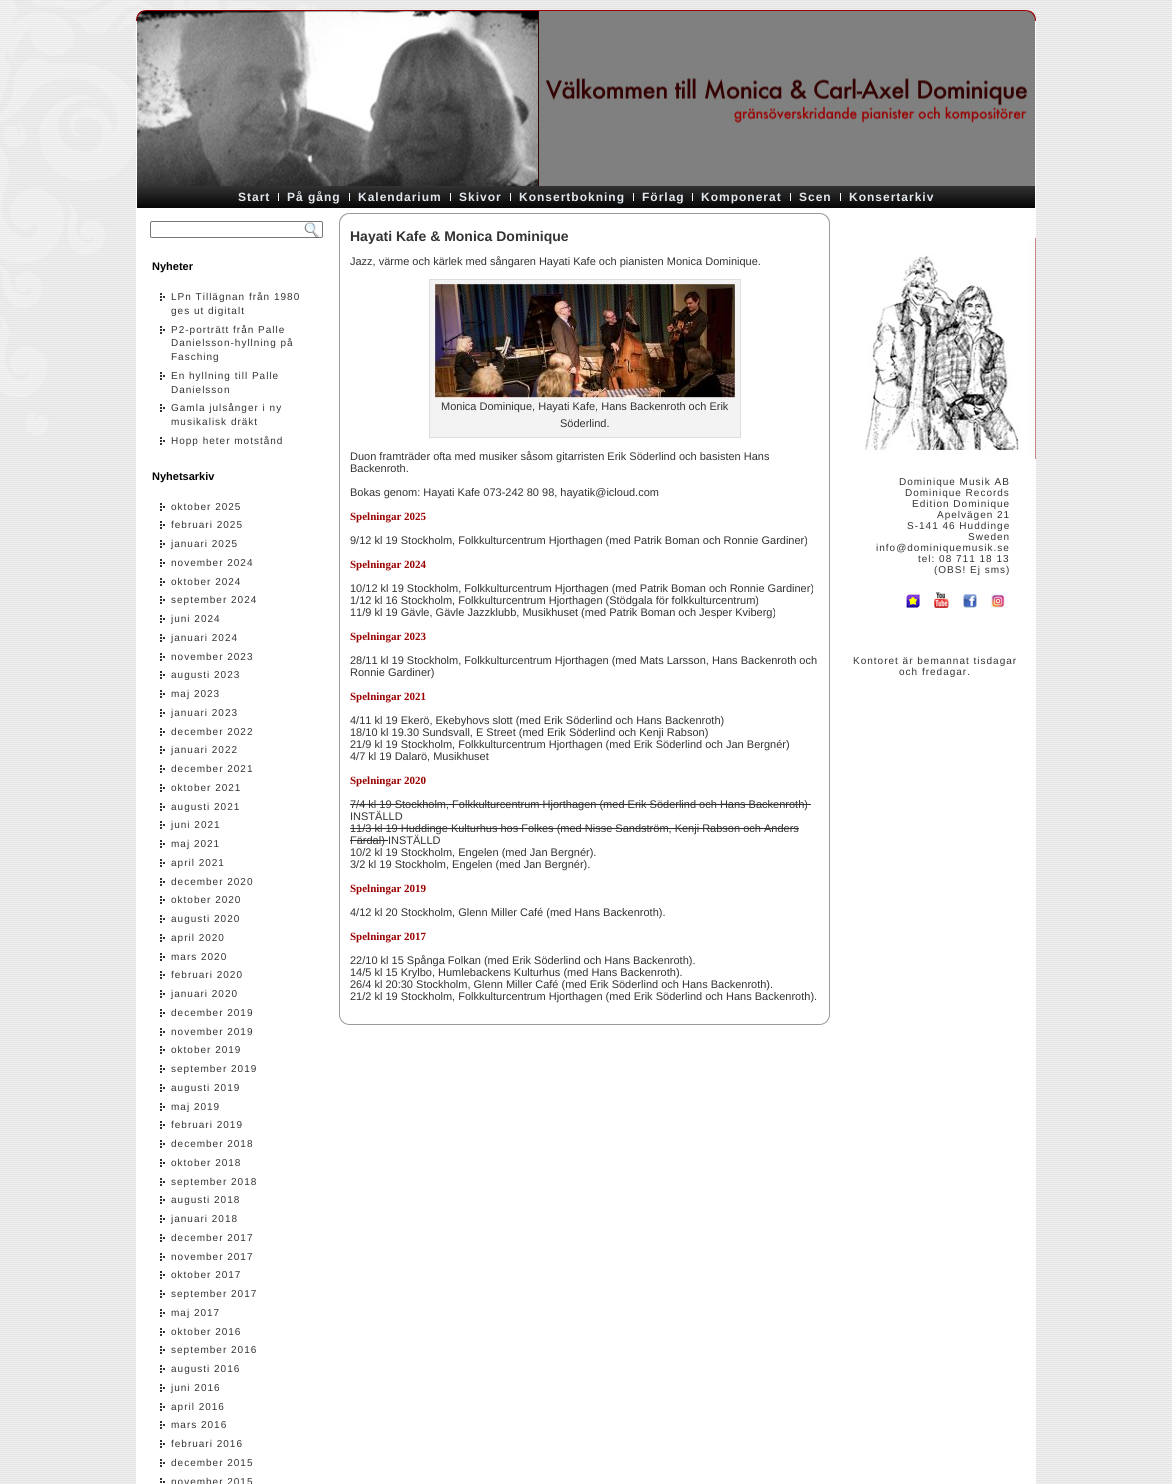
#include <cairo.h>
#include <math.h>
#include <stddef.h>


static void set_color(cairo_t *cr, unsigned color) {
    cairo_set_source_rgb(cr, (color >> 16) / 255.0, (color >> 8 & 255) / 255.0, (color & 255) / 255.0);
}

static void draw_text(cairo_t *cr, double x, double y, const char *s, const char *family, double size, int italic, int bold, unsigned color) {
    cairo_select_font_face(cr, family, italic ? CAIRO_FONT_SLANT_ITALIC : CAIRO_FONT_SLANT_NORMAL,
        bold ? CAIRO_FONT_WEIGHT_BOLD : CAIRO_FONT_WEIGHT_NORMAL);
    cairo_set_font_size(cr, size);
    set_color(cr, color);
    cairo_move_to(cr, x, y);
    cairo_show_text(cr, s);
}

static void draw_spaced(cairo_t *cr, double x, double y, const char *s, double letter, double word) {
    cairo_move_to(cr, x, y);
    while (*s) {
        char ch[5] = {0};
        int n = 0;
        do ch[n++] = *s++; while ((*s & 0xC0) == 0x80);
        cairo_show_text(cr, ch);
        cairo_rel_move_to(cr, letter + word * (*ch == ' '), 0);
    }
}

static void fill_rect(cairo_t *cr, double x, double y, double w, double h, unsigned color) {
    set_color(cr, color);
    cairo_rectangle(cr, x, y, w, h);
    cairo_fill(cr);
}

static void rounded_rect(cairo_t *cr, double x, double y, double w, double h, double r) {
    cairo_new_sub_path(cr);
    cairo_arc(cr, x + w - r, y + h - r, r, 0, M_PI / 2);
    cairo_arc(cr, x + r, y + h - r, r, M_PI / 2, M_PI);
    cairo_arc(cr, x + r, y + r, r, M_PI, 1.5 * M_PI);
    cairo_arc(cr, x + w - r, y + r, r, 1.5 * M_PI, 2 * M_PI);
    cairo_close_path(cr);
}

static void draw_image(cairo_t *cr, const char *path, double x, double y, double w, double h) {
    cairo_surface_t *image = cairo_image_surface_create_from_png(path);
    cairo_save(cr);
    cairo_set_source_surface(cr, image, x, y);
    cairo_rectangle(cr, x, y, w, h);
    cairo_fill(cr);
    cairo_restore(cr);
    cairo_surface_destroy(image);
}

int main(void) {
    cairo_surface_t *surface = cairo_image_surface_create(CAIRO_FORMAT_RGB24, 1172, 1484);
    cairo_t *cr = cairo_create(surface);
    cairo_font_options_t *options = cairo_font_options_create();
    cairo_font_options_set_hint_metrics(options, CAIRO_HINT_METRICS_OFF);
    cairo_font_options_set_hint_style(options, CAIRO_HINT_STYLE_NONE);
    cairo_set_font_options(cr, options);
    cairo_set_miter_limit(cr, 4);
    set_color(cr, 0xFFFFFF);
    cairo_paint(cr);
    draw_image(cr, "assets/img1.png", 0, 0, 1172, 1484);
    draw_image(cr, "assets/img2.png", 0, 0, 318, 435);
    draw_image(cr, "assets/img3.png", 136, 10, 889, 11);
    draw_image(cr, "assets/img4.png", 136, 10, 9, 9);
    draw_image(cr, "assets/img5.png", 1025, 10, 11, 11);
    draw_image(cr, "assets/img6.png", 1027, 10, 9, 9);
    fill_rect(cr, 136, 21, 900, 1463, 0xFFFFFF);
    draw_image(cr, "assets/img7.png", 137, 11, 898, 175);
    draw_image(cr, "assets/img8.png", 149, 11, 876, 175);
    draw_image(cr, "assets/img9.png", 137, 186, 888, 22);
    draw_image(cr, "assets/img10.png", 1025, 186, 10, 22);
    cairo_select_font_face(cr, "Liberation Sans", CAIRO_FONT_SLANT_NORMAL, CAIRO_FONT_WEIGHT_BOLD);
    cairo_set_font_size(cr, 12);
    set_color(cr, 0xE2E8EE);
    draw_spaced(cr, 238, 201, "Start", 1, 0);
    fill_rect(cr, 278, 193, 1, 8, 0xFFFFFF);
    set_color(cr, 0xE2E8EE);
    draw_spaced(cr, 287, 201, "På gång", 1, 0);
    fill_rect(cr, 349, 193, 1, 8, 0xFFFFFF);
    set_color(cr, 0xE2E8EE);
    draw_spaced(cr, 358, 201, "Kalendarium", 1, 0);
    fill_rect(cr, 450, 193, 1, 8, 0xFFFFFF);
    set_color(cr, 0xE2E8EE);
    draw_spaced(cr, 459, 201, "Skivor", 1, 0);
    fill_rect(cr, 510, 193, 1, 8, 0xFFFFFF);
    set_color(cr, 0xE2E8EE);
    draw_spaced(cr, 519, 201, "Konsertbokning", 1, 0);
    fill_rect(cr, 633, 193, 1, 8, 0xFFFFFF);
    set_color(cr, 0xE2E8EE);
    draw_spaced(cr, 642, 201, "Förlag", 1, 0);
    fill_rect(cr, 692, 193, 1, 8, 0xFFFFFF);
    set_color(cr, 0xE2E8EE);
    draw_spaced(cr, 701, 201, "Komponerat", 1, 0);
    fill_rect(cr, 790, 193, 1, 8, 0xFFFFFF);
    set_color(cr, 0xE2E8EE);
    draw_spaced(cr, 799, 201, "Scen", 1, 0);
    fill_rect(cr, 840, 193, 1, 8, 0xFFFFFF);
    set_color(cr, 0xE2E8EE);
    draw_spaced(cr, 849, 201, "Konsertarkiv", 1, 0);
    rounded_rect(cr, 150.5, 221.5, 172, 16, 1.5);
    set_color(cr, 0x767676);
    cairo_set_line_width(cr, 1);
    cairo_stroke(cr);
    draw_image(cr, "assets/img11.png", 304, 222, 15, 16);
    draw_text(cr, 152, 270, "Nyheter", "Liberation Sans", 11, 0, 1, 0x000000);
    draw_image(cr, "assets/img12.png", 160, 293, 5, 8);
    cairo_select_font_face(cr, "Liberation Sans", CAIRO_FONT_SLANT_NORMAL, CAIRO_FONT_WEIGHT_NORMAL);
    cairo_set_font_size(cr, 10);
    set_color(cr, 0x333333);
    draw_spaced(cr, 171, 300, "LPn Tillägnan från 1980", 1, 0);
    draw_spaced(cr, 171, 314, "ges ut digitalt", 1, 0);
    draw_image(cr, "assets/img12.png", 160, 326, 5, 8);
    draw_spaced(cr, 171, 333, "P2-porträtt från Palle", 1, 0);
    draw_spaced(cr, 171, 346, "Danielsson-hyllning på", 1, 0);
    draw_spaced(cr, 171, 360, "Fasching", 1, 0);
    draw_image(cr, "assets/img12.png", 160, 372, 5, 8);
    draw_spaced(cr, 171, 379, "En hyllning till Palle", 1, 0);
    draw_spaced(cr, 171, 393, "Danielsson", 1, 0);
    draw_image(cr, "assets/img12.png", 160, 404, 5, 8);
    draw_spaced(cr, 171, 411, "Gamla julsånger i ny", 1, 0);
    draw_spaced(cr, 171, 425, "musikalisk dräkt", 1, 0);
    draw_image(cr, "assets/img12.png", 160, 437, 5, 8);
    draw_spaced(cr, 171, 444, "Hopp heter motstånd", 1, 0);
    draw_text(cr, 152, 480, "Nyhetsarkiv", "Liberation Sans", 11, 0, 1, 0x000000);
    draw_image(cr, "assets/img12.png", 160, 503, 5, 8);
    cairo_select_font_face(cr, "Liberation Sans", CAIRO_FONT_SLANT_NORMAL, CAIRO_FONT_WEIGHT_NORMAL);
    cairo_set_font_size(cr, 10);
    set_color(cr, 0x333333);
    draw_spaced(cr, 171, 510, "oktober 2025", 1, 0);
    draw_image(cr, "assets/img12.png", 160, 521, 5, 8);
    draw_spaced(cr, 171, 528, "februari 2025", 1, 0);
    draw_image(cr, "assets/img12.png", 160, 540, 5, 8);
    draw_spaced(cr, 171, 547, "januari 2025", 1, 0);
    draw_image(cr, "assets/img12.png", 160, 559, 5, 8);
    draw_spaced(cr, 171, 566, "november 2024", 1, 0);
    draw_image(cr, "assets/img12.png", 160, 578, 5, 8);
    draw_spaced(cr, 171, 585, "oktober 2024", 1, 0);
    draw_image(cr, "assets/img12.png", 160, 596, 5, 8);
    draw_spaced(cr, 171, 603, "september 2024", 1, 0);
    draw_image(cr, "assets/img12.png", 160, 615, 5, 8);
    draw_spaced(cr, 171, 622, "juni 2024", 1, 0);
    draw_image(cr, "assets/img12.png", 160, 634, 5, 8);
    draw_spaced(cr, 171, 641, "januari 2024", 1, 0);
    draw_image(cr, "assets/img12.png", 160, 653, 5, 8);
    draw_spaced(cr, 171, 660, "november 2023", 1, 0);
    draw_image(cr, "assets/img12.png", 160, 671, 5, 8);
    draw_spaced(cr, 171, 678, "augusti 2023", 1, 0);
    draw_image(cr, "assets/img12.png", 160, 690, 5, 8);
    draw_spaced(cr, 171, 697, "maj 2023", 1, 0);
    draw_image(cr, "assets/img12.png", 160, 709, 5, 8);
    draw_spaced(cr, 171, 716, "januari 2023", 1, 0);
    draw_image(cr, "assets/img12.png", 160, 728, 5, 8);
    draw_spaced(cr, 171, 735, "december 2022", 1, 0);
    draw_image(cr, "assets/img12.png", 160, 746, 5, 8);
    draw_spaced(cr, 171, 753, "januari 2022", 1, 0);
    draw_image(cr, "assets/img12.png", 160, 765, 5, 8);
    draw_spaced(cr, 171, 772, "december 2021", 1, 0);
    draw_image(cr, "assets/img12.png", 160, 784, 5, 8);
    draw_spaced(cr, 171, 791, "oktober 2021", 1, 0);
    draw_image(cr, "assets/img12.png", 160, 803, 5, 8);
    draw_spaced(cr, 171, 810, "augusti 2021", 1, 0);
    draw_image(cr, "assets/img12.png", 160, 821, 5, 8);
    draw_spaced(cr, 171, 828, "juni 2021", 1, 0);
    draw_image(cr, "assets/img12.png", 160, 840, 5, 8);
    draw_spaced(cr, 171, 847, "maj 2021", 1, 0);
    draw_image(cr, "assets/img12.png", 160, 859, 5, 8);
    draw_spaced(cr, 171, 866, "april 2021", 1, 0);
    draw_image(cr, "assets/img12.png", 160, 878, 5, 8);
    draw_spaced(cr, 171, 885, "december 2020", 1, 0);
    draw_image(cr, "assets/img12.png", 160, 896, 5, 8);
    draw_spaced(cr, 171, 903, "oktober 2020", 1, 0);
    draw_image(cr, "assets/img12.png", 160, 915, 5, 8);
    draw_spaced(cr, 171, 922, "augusti 2020", 1, 0);
    draw_image(cr, "assets/img12.png", 160, 934, 5, 8);
    draw_spaced(cr, 171, 941, "april 2020", 1, 0);
    draw_image(cr, "assets/img12.png", 160, 953, 5, 8);
    draw_spaced(cr, 171, 960, "mars 2020", 1, 0);
    draw_image(cr, "assets/img12.png", 160, 971, 5, 8);
    draw_spaced(cr, 171, 978, "februari 2020", 1, 0);
    draw_image(cr, "assets/img12.png", 160, 990, 5, 8);
    draw_spaced(cr, 171, 997, "januari 2020", 1, 0);
    draw_image(cr, "assets/img12.png", 160, 1009, 5, 8);
    draw_spaced(cr, 171, 1016, "december 2019", 1, 0);
    draw_image(cr, "assets/img12.png", 160, 1028, 5, 8);
    draw_spaced(cr, 171, 1035, "november 2019", 1, 0);
    draw_image(cr, "assets/img12.png", 160, 1046, 5, 8);
    draw_spaced(cr, 171, 1053, "oktober 2019", 1, 0);
    draw_image(cr, "assets/img12.png", 160, 1065, 5, 8);
    draw_spaced(cr, 171, 1072, "september 2019", 1, 0);
    draw_image(cr, "assets/img12.png", 160, 1084, 5, 8);
    draw_spaced(cr, 171, 1091, "augusti 2019", 1, 0);
    draw_image(cr, "assets/img12.png", 160, 1103, 5, 8);
    draw_spaced(cr, 171, 1110, "maj 2019", 1, 0);
    draw_image(cr, "assets/img12.png", 160, 1121, 5, 8);
    draw_spaced(cr, 171, 1128, "februari 2019", 1, 0);
    draw_image(cr, "assets/img12.png", 160, 1140, 5, 8);
    draw_spaced(cr, 171, 1147, "december 2018", 1, 0);
    draw_image(cr, "assets/img12.png", 160, 1159, 5, 8);
    draw_spaced(cr, 171, 1166, "oktober 2018", 1, 0);
    draw_image(cr, "assets/img12.png", 160, 1178, 5, 8);
    draw_spaced(cr, 171, 1185, "september 2018", 1, 0);
    draw_image(cr, "assets/img12.png", 160, 1196, 5, 8);
    draw_spaced(cr, 171, 1203, "augusti 2018", 1, 0);
    draw_image(cr, "assets/img12.png", 160, 1215, 5, 8);
    draw_spaced(cr, 171, 1222, "januari 2018", 1, 0);
    draw_image(cr, "assets/img12.png", 160, 1234, 5, 8);
    draw_spaced(cr, 171, 1241, "december 2017", 1, 0);
    draw_image(cr, "assets/img12.png", 160, 1253, 5, 8);
    draw_spaced(cr, 171, 1260, "november 2017", 1, 0);
    draw_image(cr, "assets/img12.png", 160, 1271, 5, 8);
    draw_spaced(cr, 171, 1278, "oktober 2017", 1, 0);
    draw_image(cr, "assets/img12.png", 160, 1290, 5, 8);
    draw_spaced(cr, 171, 1297, "september 2017", 1, 0);
    draw_image(cr, "assets/img12.png", 160, 1309, 5, 8);
    draw_spaced(cr, 171, 1316, "maj 2017", 1, 0);
    draw_image(cr, "assets/img12.png", 160, 1328, 5, 8);
    draw_spaced(cr, 171, 1335, "oktober 2016", 1, 0);
    draw_image(cr, "assets/img12.png", 160, 1346, 5, 8);
    draw_spaced(cr, 171, 1353, "september 2016", 1, 0);
    draw_image(cr, "assets/img12.png", 160, 1365, 5, 8);
    draw_spaced(cr, 171, 1372, "augusti 2016", 1, 0);
    draw_image(cr, "assets/img12.png", 160, 1384, 5, 8);
    draw_spaced(cr, 171, 1391, "juni 2016", 1, 0);
    draw_image(cr, "assets/img12.png", 160, 1403, 5, 8);
    draw_spaced(cr, 171, 1410, "april 2016", 1, 0);
    draw_image(cr, "assets/img12.png", 160, 1421, 5, 8);
    draw_spaced(cr, 171, 1428, "mars 2016", 1, 0);
    draw_image(cr, "assets/img12.png", 160, 1440, 5, 8);
    draw_spaced(cr, 171, 1447, "februari 2016", 1, 0);
    draw_image(cr, "assets/img12.png", 160, 1459, 5, 8);
    draw_spaced(cr, 171, 1466, "december 2015", 1, 0);
    draw_image(cr, "assets/img13.png", 160, 1478, 5, 5);
    draw_spaced(cr, 171, 1485, "november 2015", 1, 0);
    draw_image(cr, "assets/img14.png", 339, 213, 480, 812);
    draw_image(cr, "assets/img15.png", 339, 213, 8, 8);
    fill_rect(cr, 829, 224, 1, 790, 0x999999);
    draw_image(cr, "assets/img16.png", 819, 213, 11, 812);
    draw_image(cr, "assets/img17.png", 822, 213, 8, 8);
    fill_rect(cr, 339, 224, 1, 790, 0x999999);
    draw_text(cr, 350, 241, "Hayati Kafe & Monica Dominique", "Liberation Sans", 14, 0, 1, 0x333333);
    draw_text(cr, 350, 265, "Jazz, värme och kärlek med sångaren Hayati Kafe och pianisten Monica Dominique.", "Liberation Sans", 11, 0, 0, 0x333333);
    set_color(cr, 0xF3F3F3);
    cairo_rectangle(cr, 429.5, 279.5, 311, 158);
    cairo_fill_preserve(cr);
    set_color(cr, 0xDDDDDD);
    cairo_stroke(cr);
    draw_image(cr, "assets/img18.png", 435, 284, 300, 114);
    draw_text(cr, 441, 410, "Monica Dominique, Hayati Kafe, Hans Backenroth och Erik", "Liberation Sans", 11, 0, 0, 0x333333);
    draw_text(cr, 560, 427, "Söderlind.", "Liberation Sans", 11, 0, 0, 0x333333);
    draw_text(cr, 350, 460, "Duon framträder ofta med musiker såsom gitarristen Erik Söderlind och basisten Hans", "Liberation Sans", 11, 0, 0, 0x333333);
    draw_text(cr, 350, 472, "Backenroth.", "Liberation Sans", 11, 0, 0, 0x333333);
    draw_text(cr, 350, 496, "Bokas genom: Hayati Kafe 073-242 80 98, hayatik@icloud.com", "Liberation Sans", 11, 0, 0, 0x333333);
    draw_text(cr, 350, 520, "Spelningar 2025", "Liberation Serif", 11, 0, 1, 0x990000);
    draw_text(cr, 350, 544, "9/12 kl 19 Stockholm, Folkkulturcentrum Hjorthagen (med Patrik Boman och Ronnie Gardiner)", "Liberation Sans", 11, 0, 0, 0x333333);
    draw_text(cr, 350, 568, "Spelningar 2024", "Liberation Serif", 11, 0, 1, 0x990000);
    draw_text(cr, 350, 592, "10/12 kl 19 Stockholm, Folkkulturcentrum Hjorthagen (med Patrik Boman och Ronnie Gardiner)", "Liberation Sans", 11, 0, 0, 0x333333);
    draw_text(cr, 350, 604, "1/12 kl 16 Stockholm, Folkkulturcentrum Hjorthagen (Stödgala för folkkulturcentrum)", "Liberation Sans", 11, 0, 0, 0x333333);
    draw_text(cr, 350, 616, "11/9 kl 19 Gävle, Gävle Jazzklubb, Musikhuset (med Patrik Boman och Jesper Kviberg)", "Liberation Sans", 11, 0, 0, 0x333333);
    draw_text(cr, 350, 640, "Spelningar 2023", "Liberation Serif", 11, 0, 1, 0x990000);
    draw_text(cr, 350, 664, "28/11 kl 19 Stockholm, Folkkulturcentrum Hjorthagen (med Mats Larsson, Hans Backenroth och", "Liberation Sans", 11, 0, 0, 0x333333);
    draw_text(cr, 350, 676, "Ronnie Gardiner)", "Liberation Sans", 11, 0, 0, 0x333333);
    draw_text(cr, 350, 700, "Spelningar 2021", "Liberation Serif", 11, 0, 1, 0x990000);
    draw_text(cr, 350, 724, "4/11 kl 19 Ekerö, Ekebyhovs slott (med Erik Söderlind och Hans Backenroth)", "Liberation Sans", 11, 0, 0, 0x333333);
    draw_text(cr, 350, 736, "18/10 kl 19.30 Sundsvall, E Street (med Erik Söderlind och Kenji Rabson)", "Liberation Sans", 11, 0, 0, 0x333333);
    draw_text(cr, 350, 748, "21/9 kl 19 Stockholm, Folkkulturcentrum Hjorthagen (med Erik Söderlind och Jan Bergnér)", "Liberation Sans", 11, 0, 0, 0x333333);
    draw_text(cr, 350, 760, "4/7 kl 19 Dalarö, Musikhuset", "Liberation Sans", 11, 0, 0, 0x333333);
    draw_text(cr, 350, 784, "Spelningar 2020", "Liberation Serif", 11, 0, 1, 0x990000);
    draw_text(cr, 350, 808, "7/4 kl 19 Stockholm, Folkkulturcentrum Hjorthagen (med Erik Söderlind och Hans Backenroth)", "Liberation Sans", 11, 0, 0, 0x333333);
    fill_rect(cr, 350, 804, 461, 1, 0x333333);
    draw_text(cr, 350, 820, "INSTÄLLD", "Liberation Sans", 11, 0, 0, 0x333333);
    draw_text(cr, 350, 832, "11/3 kl 19 Huddinge Kulturhus hos Folkes (med Nisse Sandström, Kenji Rabson och Anders", "Liberation Sans", 11, 0, 0, 0x333333);
    fill_rect(cr, 350, 828, 449, 1, 0x333333);
    draw_text(cr, 350, 844, "Färdal) INSTÄLLD", "Liberation Sans", 11, 0, 0, 0x333333);
    fill_rect(cr, 350, 840, 38, 1, 0x333333);
    draw_text(cr, 350, 856, "10/2 kl 19 Stockholm, Engelen (med Jan Bergnér).", "Liberation Sans", 11, 0, 0, 0x333333);
    draw_text(cr, 350, 868, "3/2 kl 19 Stockholm, Engelen (med Jan Bergnér).", "Liberation Sans", 11, 0, 0, 0x333333);
    draw_text(cr, 350, 892, "Spelningar 2019", "Liberation Serif", 11, 0, 1, 0x990000);
    draw_text(cr, 350, 916, "4/12 kl 20 Stockholm, Glenn Miller Café (med Hans Backenroth).", "Liberation Sans", 11, 0, 0, 0x333333);
    draw_text(cr, 350, 940, "Spelningar 2017", "Liberation Serif", 11, 0, 1, 0x990000);
    draw_text(cr, 350, 964, "22/10 kl 15 Spånga Folkan (med Erik Söderlind och Hans Backenroth).", "Liberation Sans", 11, 0, 0, 0x333333);
    draw_text(cr, 350, 976, "14/5 kl 15 Krylbo, Humlebackens Kulturhus (med Hans Backenroth).", "Liberation Sans", 11, 0, 0, 0x333333);
    draw_text(cr, 350, 988, "26/4 kl 20:30 Stockholm, Glenn Miller Café (med Erik Söderlind och Hans Backenroth).", "Liberation Sans", 11, 0, 0, 0x333333);
    draw_text(cr, 350, 1000, "21/2 kl 19 Stockholm, Folkkulturcentrum Hjorthagen (med Erik Söderlind och Hans Backenroth).", "Liberation Sans", 11, 0, 0, 0x333333);
    draw_image(cr, "assets/img19.png", 864, 238, 172, 221);
    cairo_set_font_size(cr, 10);
    draw_spaced(cr, 899, 485, "Dominique Musik AB", 1, 0);
    draw_spaced(cr, 905, 496, "Dominique Records", 1, 0);
    draw_spaced(cr, 912, 507, "Edition Dominique", 1, 0);
    draw_spaced(cr, 937, 518, "Apelvägen 21", 1, 0);
    draw_spaced(cr, 907, 529, "S-141 46 Huddinge", 1, 0);
    draw_spaced(cr, 968, 540, "Sweden", 1, 0);
    draw_spaced(cr, 876, 551, "info@dominiquemusik.se", 1, 0);
    draw_spaced(cr, 918, 562, "tel: 08 711 18 13", 1, 0);
    draw_spaced(cr, 934, 573, "(OBS! Ej sms)", 1, 0);
    draw_image(cr, "assets/img20.png", 906, 594, 14, 14);
    draw_image(cr, "assets/img21.png", 934, 592, 15, 16);
    draw_image(cr, "assets/img22.png", 963, 594, 14, 14);
    draw_image(cr, "assets/img23.png", 991, 594, 14, 14);
    draw_spaced(cr, 853, 664, "Kontoret är bemannat tisdagar", 1, 0);
    draw_spaced(cr, 899, 675, "och fredagar.", 1, 0);
    cairo_surface_write_to_png(surface, "output.png");
    cairo_font_options_destroy(options);
    cairo_destroy(cr);
    cairo_surface_destroy(surface);
    return 0;
}
